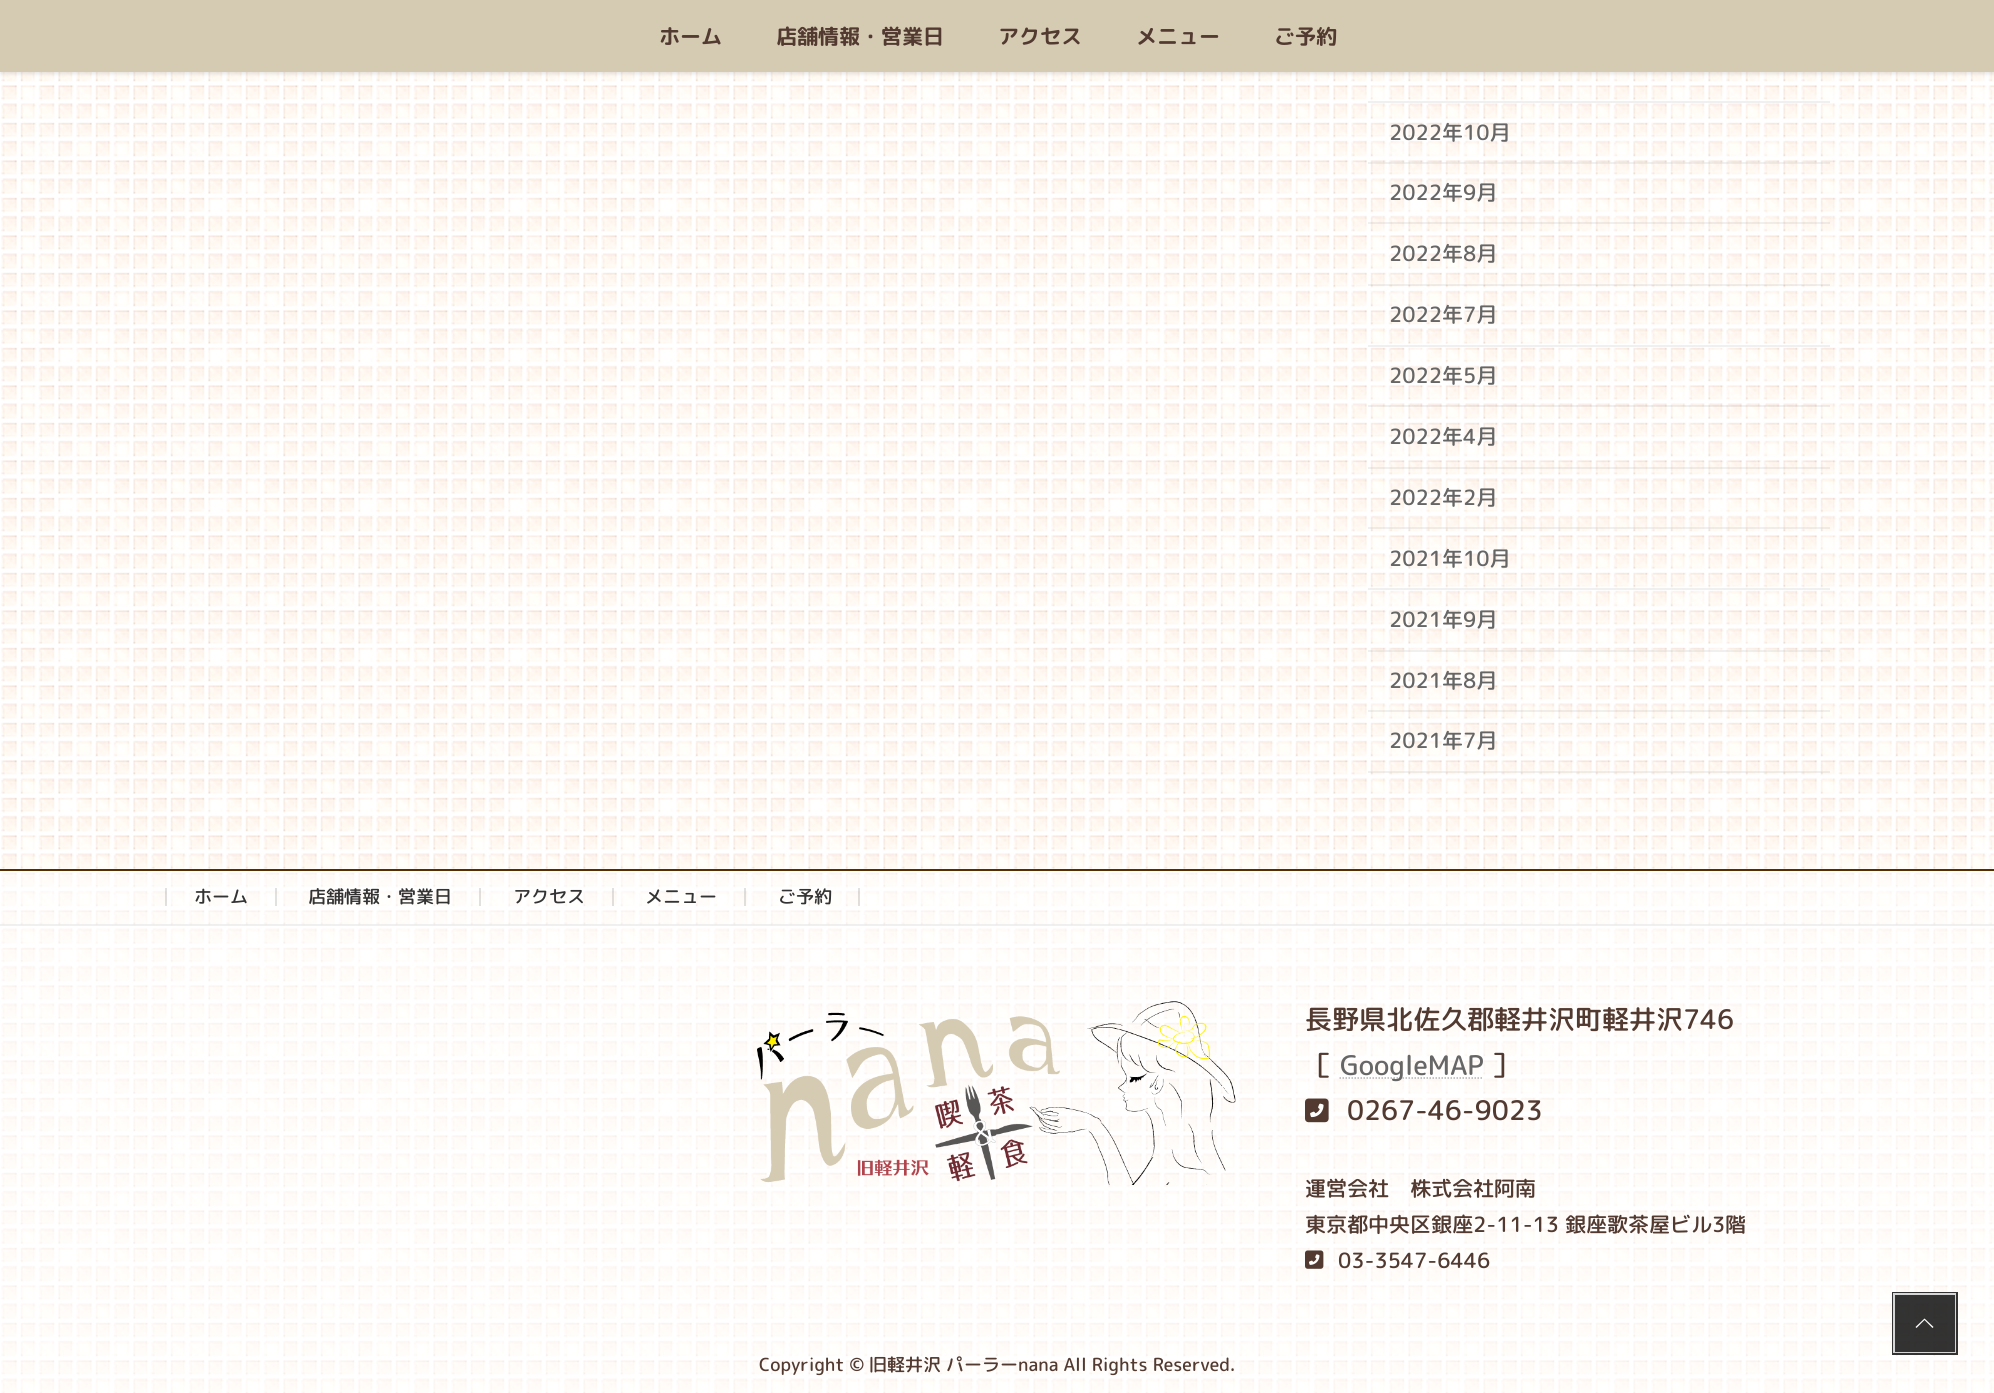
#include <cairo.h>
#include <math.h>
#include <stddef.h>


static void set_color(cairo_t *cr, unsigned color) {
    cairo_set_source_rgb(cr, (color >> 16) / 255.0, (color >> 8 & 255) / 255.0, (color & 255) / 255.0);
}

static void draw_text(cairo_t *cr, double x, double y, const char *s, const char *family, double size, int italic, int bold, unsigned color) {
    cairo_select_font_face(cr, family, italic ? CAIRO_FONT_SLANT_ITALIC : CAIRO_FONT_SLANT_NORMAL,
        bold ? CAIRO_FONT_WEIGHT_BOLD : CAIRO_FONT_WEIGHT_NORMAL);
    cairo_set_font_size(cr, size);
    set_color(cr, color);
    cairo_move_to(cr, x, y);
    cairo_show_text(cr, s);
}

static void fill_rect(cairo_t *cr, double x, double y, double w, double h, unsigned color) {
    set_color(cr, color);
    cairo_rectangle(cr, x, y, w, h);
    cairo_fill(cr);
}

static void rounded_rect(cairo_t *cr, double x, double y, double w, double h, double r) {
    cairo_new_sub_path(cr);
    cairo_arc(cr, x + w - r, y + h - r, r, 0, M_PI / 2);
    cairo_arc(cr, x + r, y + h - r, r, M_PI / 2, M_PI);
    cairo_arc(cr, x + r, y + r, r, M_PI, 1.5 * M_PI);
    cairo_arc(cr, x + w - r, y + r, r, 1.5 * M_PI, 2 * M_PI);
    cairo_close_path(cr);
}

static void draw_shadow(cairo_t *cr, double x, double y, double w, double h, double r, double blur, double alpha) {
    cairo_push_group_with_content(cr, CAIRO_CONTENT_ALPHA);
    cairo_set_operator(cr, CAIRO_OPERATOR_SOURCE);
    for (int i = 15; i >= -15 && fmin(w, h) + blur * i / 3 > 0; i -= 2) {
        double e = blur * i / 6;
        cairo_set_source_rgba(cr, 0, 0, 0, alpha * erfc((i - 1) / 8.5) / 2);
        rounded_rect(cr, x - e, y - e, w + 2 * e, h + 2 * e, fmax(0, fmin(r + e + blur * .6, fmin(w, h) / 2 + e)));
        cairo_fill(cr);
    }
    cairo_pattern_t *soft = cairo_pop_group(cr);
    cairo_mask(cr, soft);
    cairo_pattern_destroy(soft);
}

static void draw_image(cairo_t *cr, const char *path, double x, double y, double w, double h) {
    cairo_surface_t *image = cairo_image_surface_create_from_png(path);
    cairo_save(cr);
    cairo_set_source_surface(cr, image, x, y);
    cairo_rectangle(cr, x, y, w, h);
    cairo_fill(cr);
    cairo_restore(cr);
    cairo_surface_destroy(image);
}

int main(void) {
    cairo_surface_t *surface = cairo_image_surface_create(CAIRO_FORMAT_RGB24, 1994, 1393);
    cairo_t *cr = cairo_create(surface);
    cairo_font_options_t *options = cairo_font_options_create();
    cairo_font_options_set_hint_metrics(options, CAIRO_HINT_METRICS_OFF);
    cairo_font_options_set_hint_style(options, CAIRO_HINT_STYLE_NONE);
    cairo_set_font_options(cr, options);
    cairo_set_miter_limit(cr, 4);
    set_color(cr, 0xFFFFFF);
    cairo_paint(cr);
    draw_image(cr, "assets/img1.png", 1, 72, 1993, 1321);
    set_color(cr, 0x000000);
    draw_shadow(cr, 0, 2, 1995, 72, 0, 2, 0.1);
    fill_rect(cr, 0, 0, 1994, 72, 0xD5CAB2);
    draw_text(cr, 659, 44, "ホーム", "Rounded Mplus 1c Bold", 21, 0, 1, 0x523A31);
    draw_text(cr, 776, 44, "店舗情報・営業日", "Rounded Mplus 1c Bold", 21, 0, 1, 0x523A31);
    draw_text(cr, 998, 44, "アクセス", "Rounded Mplus 1c Bold", 21, 0, 1, 0x523A31);
    draw_text(cr, 1136, 44, "メニュー", "Rounded Mplus 1c Bold", 21, 0, 1, 0x523A31);
    draw_text(cr, 1274, 44, "ご予約", "Rounded Mplus 1c Bold", 21, 0, 1, 0x523A31);
    fill_rect(cr, 1368, 101, 462, 2, 0xF0F0F0);
    cairo_set_source_rgba(cr, 0, 0, 0, 0.06);
    cairo_rectangle(cr, 1368, 162, 462, 2);
    cairo_fill(cr);
    draw_text(cr, 1389, 140, "2022年10月", "Rounded Mplus 1c Medium", 21, 0, 0, 0x666666);
    cairo_set_source_rgba(cr, 0, 0, 0, 0.06);
    cairo_rectangle(cr, 1368, 222, 462, 2);
    cairo_fill(cr);
    draw_text(cr, 1389, 200, "2022年9月", "Rounded Mplus 1c Medium", 21, 0, 0, 0x666666);
    cairo_set_source_rgba(cr, 0, 0, 0, 0.06);
    cairo_rectangle(cr, 1368, 284, 462, 2);
    cairo_fill(cr);
    draw_text(cr, 1389, 261, "2022年8月", "Rounded Mplus 1c Medium", 21, 0, 0, 0x666666);
    fill_rect(cr, 1368, 345, 462, 2, 0xF0F0F0);
    draw_text(cr, 1389, 322, "2022年7月", "Rounded Mplus 1c Medium", 21, 0, 0, 0x666666);
    cairo_set_source_rgba(cr, 0, 0, 0, 0.06);
    cairo_rectangle(cr, 1368, 405, 462, 2);
    cairo_fill(cr);
    draw_text(cr, 1389, 383, "2022年5月", "Rounded Mplus 1c Medium", 21, 0, 0, 0x666666);
    cairo_set_source_rgba(cr, 0, 0, 0, 0.06);
    cairo_rectangle(cr, 1368, 467, 462, 2);
    cairo_fill(cr);
    draw_text(cr, 1389, 444, "2022年4月", "Rounded Mplus 1c Medium", 21, 0, 0, 0x666666);
    cairo_set_source_rgba(cr, 0, 0, 0, 0.06);
    cairo_rectangle(cr, 1368, 527, 462, 2);
    cairo_fill(cr);
    draw_text(cr, 1389, 505, "2022年2月", "Rounded Mplus 1c Medium", 21, 0, 0, 0x666666);
    cairo_set_source_rgba(cr, 0, 0, 0, 0.06);
    cairo_rectangle(cr, 1368, 588, 462, 2);
    cairo_fill(cr);
    draw_text(cr, 1389, 566, "2021年10月", "Rounded Mplus 1c Medium", 21, 0, 0, 0x666666);
    cairo_set_source_rgba(cr, 0, 0, 0, 0.06);
    cairo_rectangle(cr, 1368, 650, 462, 2);
    cairo_fill(cr);
    draw_text(cr, 1389, 627, "2021年9月", "Rounded Mplus 1c Medium", 21, 0, 0, 0x666666);
    cairo_set_source_rgba(cr, 0, 0, 0, 0.06);
    cairo_rectangle(cr, 1368, 710, 462, 2);
    cairo_fill(cr);
    draw_text(cr, 1389, 688, "2021年8月", "Rounded Mplus 1c Medium", 21, 0, 0, 0x666666);
    cairo_set_source_rgba(cr, 0, 0, 0, 0.06);
    cairo_rectangle(cr, 1368, 771, 462, 2);
    cairo_fill(cr);
    draw_text(cr, 1389, 748, "2021年7月", "Rounded Mplus 1c Medium", 21, 0, 0, 0x666666);
    cairo_set_source_rgba(cr, 1, 1, 1, 0.53);
    cairo_rectangle(cr, 1, 872, 1993, 521);
    cairo_fill(cr);
    fill_rect(cr, 0, 869, 1994, 2, 0x562E00);
    cairo_set_source_rgba(cr, 0, 0, 0, 0.06);
    cairo_rectangle(cr, 0, 924, 1994, 2);
    cairo_fill(cr);
    cairo_set_source_rgba(cr, 0, 0, 0, 0.12);
    cairo_rectangle(cr, 275, 888, 2, 18);
    cairo_fill(cr);
    cairo_rectangle(cr, 165, 888, 2, 18);
    cairo_fill(cr);
    draw_text(cr, 194, 903, "ホーム", "Rounded Mplus 1c Medium", 18, 0, 0, 0x333333);
    cairo_set_source_rgba(cr, 0, 0, 0, 0.12);
    cairo_rectangle(cr, 479, 888, 2, 18);
    cairo_fill(cr);
    draw_text(cr, 308, 903, "店舗情報・営業日", "Rounded Mplus 1c Medium", 18, 0, 0, 0x333333);
    cairo_set_source_rgba(cr, 0, 0, 0, 0.12);
    cairo_rectangle(cr, 612, 888, 2, 18);
    cairo_fill(cr);
    draw_text(cr, 513, 903, "アクセス", "Rounded Mplus 1c Medium", 18, 0, 0, 0x333333);
    cairo_set_source_rgba(cr, 0, 0, 0, 0.12);
    cairo_rectangle(cr, 744, 888, 2, 18);
    cairo_fill(cr);
    draw_text(cr, 645, 903, "メニュー", "Rounded Mplus 1c Medium", 18, 0, 0, 0x333333);
    cairo_set_source_rgba(cr, 0, 0, 0, 0.12);
    cairo_rectangle(cr, 858, 888, 2, 18);
    cairo_fill(cr);
    draw_text(cr, 778, 903, "ご予約", "Rounded Mplus 1c Medium", 18, 0, 0, 0x333333);
    draw_image(cr, "assets/img2.png", 757, 1001, 479, 184);
    draw_text(cr, 1305, 1029, "長野県北佐久郡軽井沢町軽井沢746", "Rounded Mplus 1c Medium", 27, 0, 0, 0x523A31);
    draw_text(cr, 1305, 1075, "［", "Rounded Mplus 1c Medium", 27, 0, 0, 0x523A31);
    cairo_new_path(cr);
    cairo_move_to(cr, 1339.5, 1078);
    cairo_line_to(cr, 1483.5, 1078);
    cairo_set_source_rgba(cr, 0, 0, 0, 0.3);
    cairo_set_line_width(cr, 1.5);
    cairo_set_dash(cr, (double[]){1.5, 1.5}, 2, 0);
    cairo_stroke(cr);
    draw_text(cr, 1340, 1075, "GoogleMAP", "Rounded Mplus 1c Medium", 27, 0, 0, 0x666666);
    draw_text(cr, 1491, 1075, "］", "Rounded Mplus 1c Medium", 27, 0, 0, 0x523A31);
    draw_image(cr, "assets/img3.png", 1305, 1098, 24, 25);
    draw_text(cr, 1347, 1120, "0267-46-9023", "Rounded Mplus 1c Medium", 27, 0, 0, 0x523A31);
    draw_text(cr, 1305, 1196, "運営会社　株式会社阿南", "Rounded Mplus 1c Medium", 21, 0, 0, 0x523A31);
    draw_text(cr, 1305, 1232, "東京都中央区銀座2-11-13 銀座歌茶屋ビル3階", "Rounded Mplus 1c Medium", 21, 0, 0, 0x523A31);
    draw_image(cr, "assets/img4.png", 1305, 1250, 19, 19);
    draw_text(cr, 1338, 1268, "03-3547-6446", "Rounded Mplus 1c Medium", 21, 0, 0, 0x523A31);
    draw_text(cr, 759, 1371, "Copyright © 旧軽井沢 パーラーnana All Rights Reserved.", "Rounded Mplus 1c Medium", 18, 0, 0, 0x523A31);
    cairo_rectangle(cr, 1893.5, 1293.5, 63, 60);
    cairo_set_source_rgba(cr, 0, 0, 0, 0.8);
    cairo_set_line_width(cr, 3);
    cairo_set_dash(cr, NULL, 0, 0);
    cairo_stroke(cr);
    cairo_rectangle(cr, 1894, 1294, 61, 58);
    cairo_set_source_rgba(cr, 1, 1, 1, 0.8);
    cairo_set_line_width(cr, 2);
    cairo_stroke(cr);
    cairo_set_source_rgba(cr, 0, 0, 0, 0.8);
    cairo_rectangle(cr, 1895, 1295, 60, 57);
    cairo_fill(cr);
    set_color(cr, 0xFFFFFF);
    cairo_new_path(cr);
    cairo_move_to(cr, 1933.5, 1327);
    cairo_line_to(cr, 1932.5, 1328);
    cairo_line_to(cr, 1924.5, 1320);
    cairo_line_to(cr, 1916.5, 1328);
    cairo_line_to(cr, 1915.5, 1327);
    cairo_line_to(cr, 1924.5, 1318.5);
    cairo_close_path(cr);
    cairo_fill(cr);
    cairo_surface_write_to_png(surface, "output.png");
    cairo_font_options_destroy(options);
    cairo_destroy(cr);
    cairo_surface_destroy(surface);
    return 0;
}
